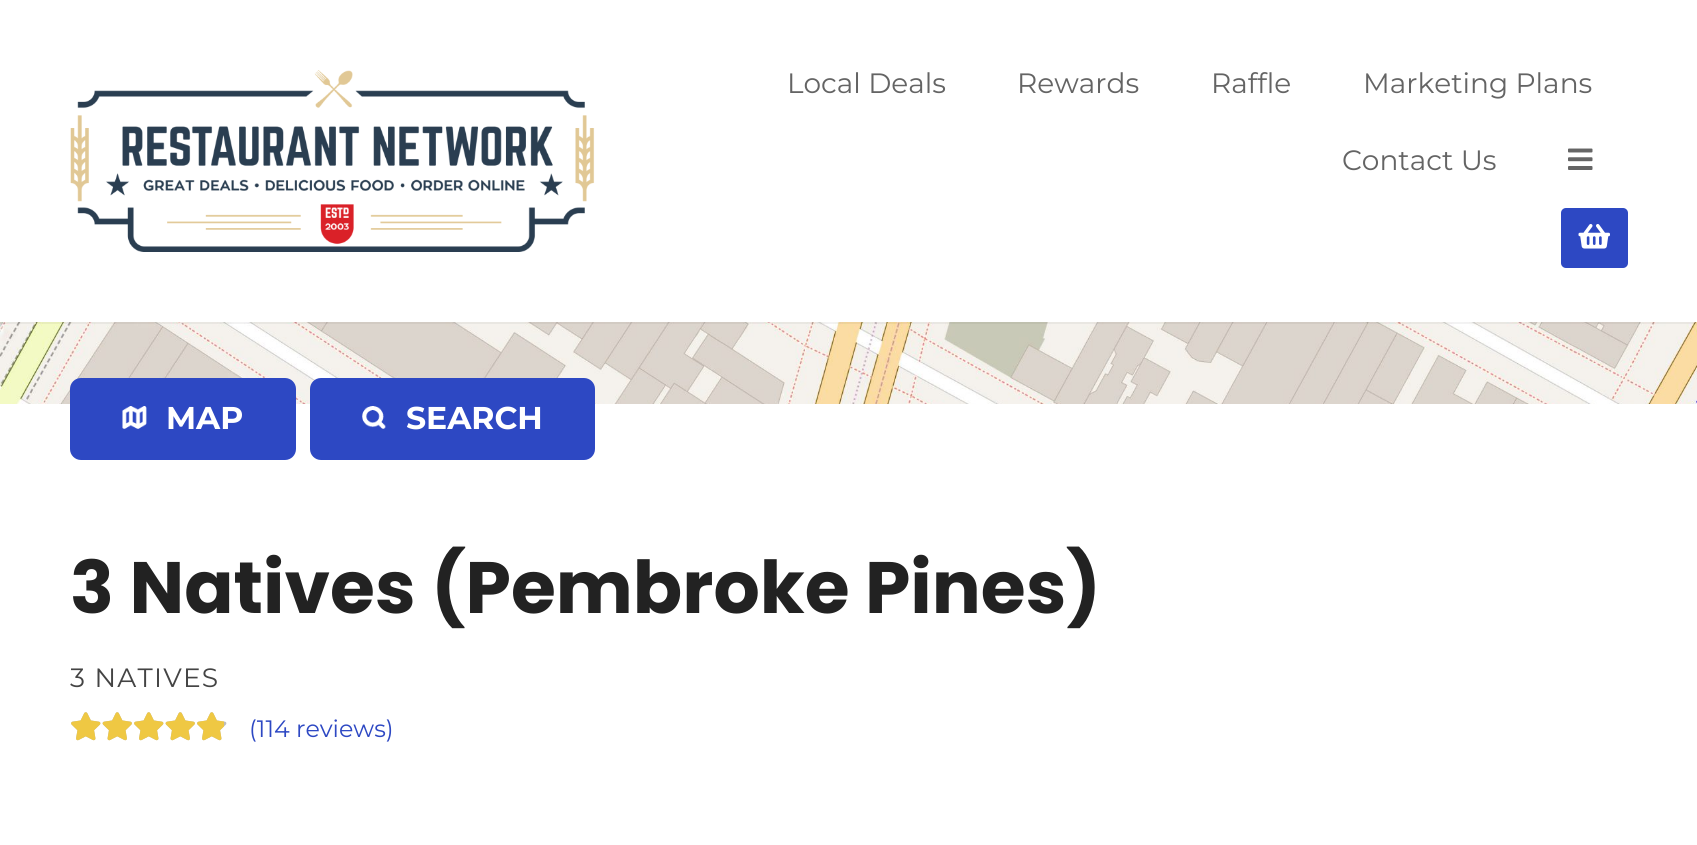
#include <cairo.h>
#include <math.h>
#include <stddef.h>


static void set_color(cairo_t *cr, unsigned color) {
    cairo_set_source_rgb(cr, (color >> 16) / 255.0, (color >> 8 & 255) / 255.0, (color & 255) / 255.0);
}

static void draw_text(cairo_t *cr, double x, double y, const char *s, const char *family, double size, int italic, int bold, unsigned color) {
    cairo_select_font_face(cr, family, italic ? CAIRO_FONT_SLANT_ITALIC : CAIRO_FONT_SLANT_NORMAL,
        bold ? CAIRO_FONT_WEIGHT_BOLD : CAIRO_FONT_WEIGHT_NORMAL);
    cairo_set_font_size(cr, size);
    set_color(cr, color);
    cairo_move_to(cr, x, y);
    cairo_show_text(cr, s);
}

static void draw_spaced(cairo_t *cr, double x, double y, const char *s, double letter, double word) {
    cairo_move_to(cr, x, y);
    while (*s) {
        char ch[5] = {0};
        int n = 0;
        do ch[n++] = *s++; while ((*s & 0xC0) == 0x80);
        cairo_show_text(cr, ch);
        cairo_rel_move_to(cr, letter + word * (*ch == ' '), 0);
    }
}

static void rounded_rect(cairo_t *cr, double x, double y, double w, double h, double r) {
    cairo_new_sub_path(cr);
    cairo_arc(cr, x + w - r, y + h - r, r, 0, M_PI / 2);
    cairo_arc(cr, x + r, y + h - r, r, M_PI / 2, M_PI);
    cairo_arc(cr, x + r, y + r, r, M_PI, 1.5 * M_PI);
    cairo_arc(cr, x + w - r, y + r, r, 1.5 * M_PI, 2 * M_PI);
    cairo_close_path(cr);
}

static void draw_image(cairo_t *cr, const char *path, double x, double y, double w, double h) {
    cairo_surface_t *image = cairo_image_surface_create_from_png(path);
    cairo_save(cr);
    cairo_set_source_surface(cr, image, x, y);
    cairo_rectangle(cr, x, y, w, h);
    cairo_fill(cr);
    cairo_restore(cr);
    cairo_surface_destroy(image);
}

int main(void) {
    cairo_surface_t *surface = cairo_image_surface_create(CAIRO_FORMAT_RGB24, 1697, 845);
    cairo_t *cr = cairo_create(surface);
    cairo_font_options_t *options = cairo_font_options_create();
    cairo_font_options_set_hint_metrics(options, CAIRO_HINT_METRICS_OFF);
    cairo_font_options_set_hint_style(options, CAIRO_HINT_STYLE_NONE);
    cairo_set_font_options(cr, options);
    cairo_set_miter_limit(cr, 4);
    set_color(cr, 0xFFFFFF);
    cairo_paint(cr);
    draw_image(cr, "assets/img1.png", 70, 70, 525, 182);
    draw_text(cr, 787, 93, "Local Deals", "Montserrat", 28, 0, 0, 0x646464);
    draw_text(cr, 1017, 93, "Rewards", "Montserrat", 28, 0, 0, 0x646464);
    draw_text(cr, 1211, 93, "Raffle", "Montserrat", 28, 0, 0, 0x646464);
    draw_text(cr, 1363, 93, "Marketing Plans", "Montserrat", 28, 0, 0, 0x646464);
    draw_text(cr, 1342, 170, "Contact Us", "Montserrat", 28, 0, 0, 0x646464);
    draw_image(cr, "assets/img2.png", 1568, 148, 25, 22);
    set_color(cr, 0x2D48C3);
    rounded_rect(cr, 1561, 208, 67, 60, 5);
    cairo_fill(cr);
    draw_image(cr, "assets/img3.png", 1578, 224, 32, 25);
    draw_image(cr, "assets/img4.png", 0, 322, 1697, 82);
    cairo_set_source_rgba(cr, 0, 0, 0, 0.05);
    cairo_rectangle(cr, 0, 322, 1697, 2);
    cairo_fill(cr);
    set_color(cr, 0x2D48C3);
    rounded_rect(cr, 70, 378, 226, 82, 11);
    cairo_fill(cr);
    draw_image(cr, "assets/img5.png", 122, 406, 25, 23);
    draw_text(cr, 166, 429, "MAP", "Montserrat", 31.5, 0, 1, 0xFFFFFF);
    set_color(cr, 0x2D48C3);
    rounded_rect(cr, 310, 378, 285, 82, 11);
    cairo_fill(cr);
    draw_image(cr, "assets/img6.png", 362, 406, 24, 23);
    draw_text(cr, 406, 429, "SEARCH", "Montserrat", 31.5, 0, 1, 0xFFFFFF);
    draw_text(cr, 70, 613, "3 Natives (Pembroke Pines)", "Poppins", 72.75, 0, 1, 0x222222);
    cairo_select_font_face(cr, "Montserrat", CAIRO_FONT_SLANT_NORMAL, CAIRO_FONT_WEIGHT_NORMAL);
    cairo_set_font_size(cr, 26.5);
    set_color(cr, 0x444444);
    draw_spaced(cr, 70, 687, "3 NATIVES", 1.25, 0);
    draw_image(cr, "assets/img7.png", 71, 712, 156, 29);
    draw_image(cr, "assets/img8.png", 71, 712, 153, 29);
    draw_text(cr, 249, 737, "(114 reviews)", "Montserrat", 23.75, 0, 0, 0x2D48C3);
    cairo_surface_write_to_png(surface, "output.png");
    cairo_font_options_destroy(options);
    cairo_destroy(cr);
    cairo_surface_destroy(surface);
    return 0;
}
